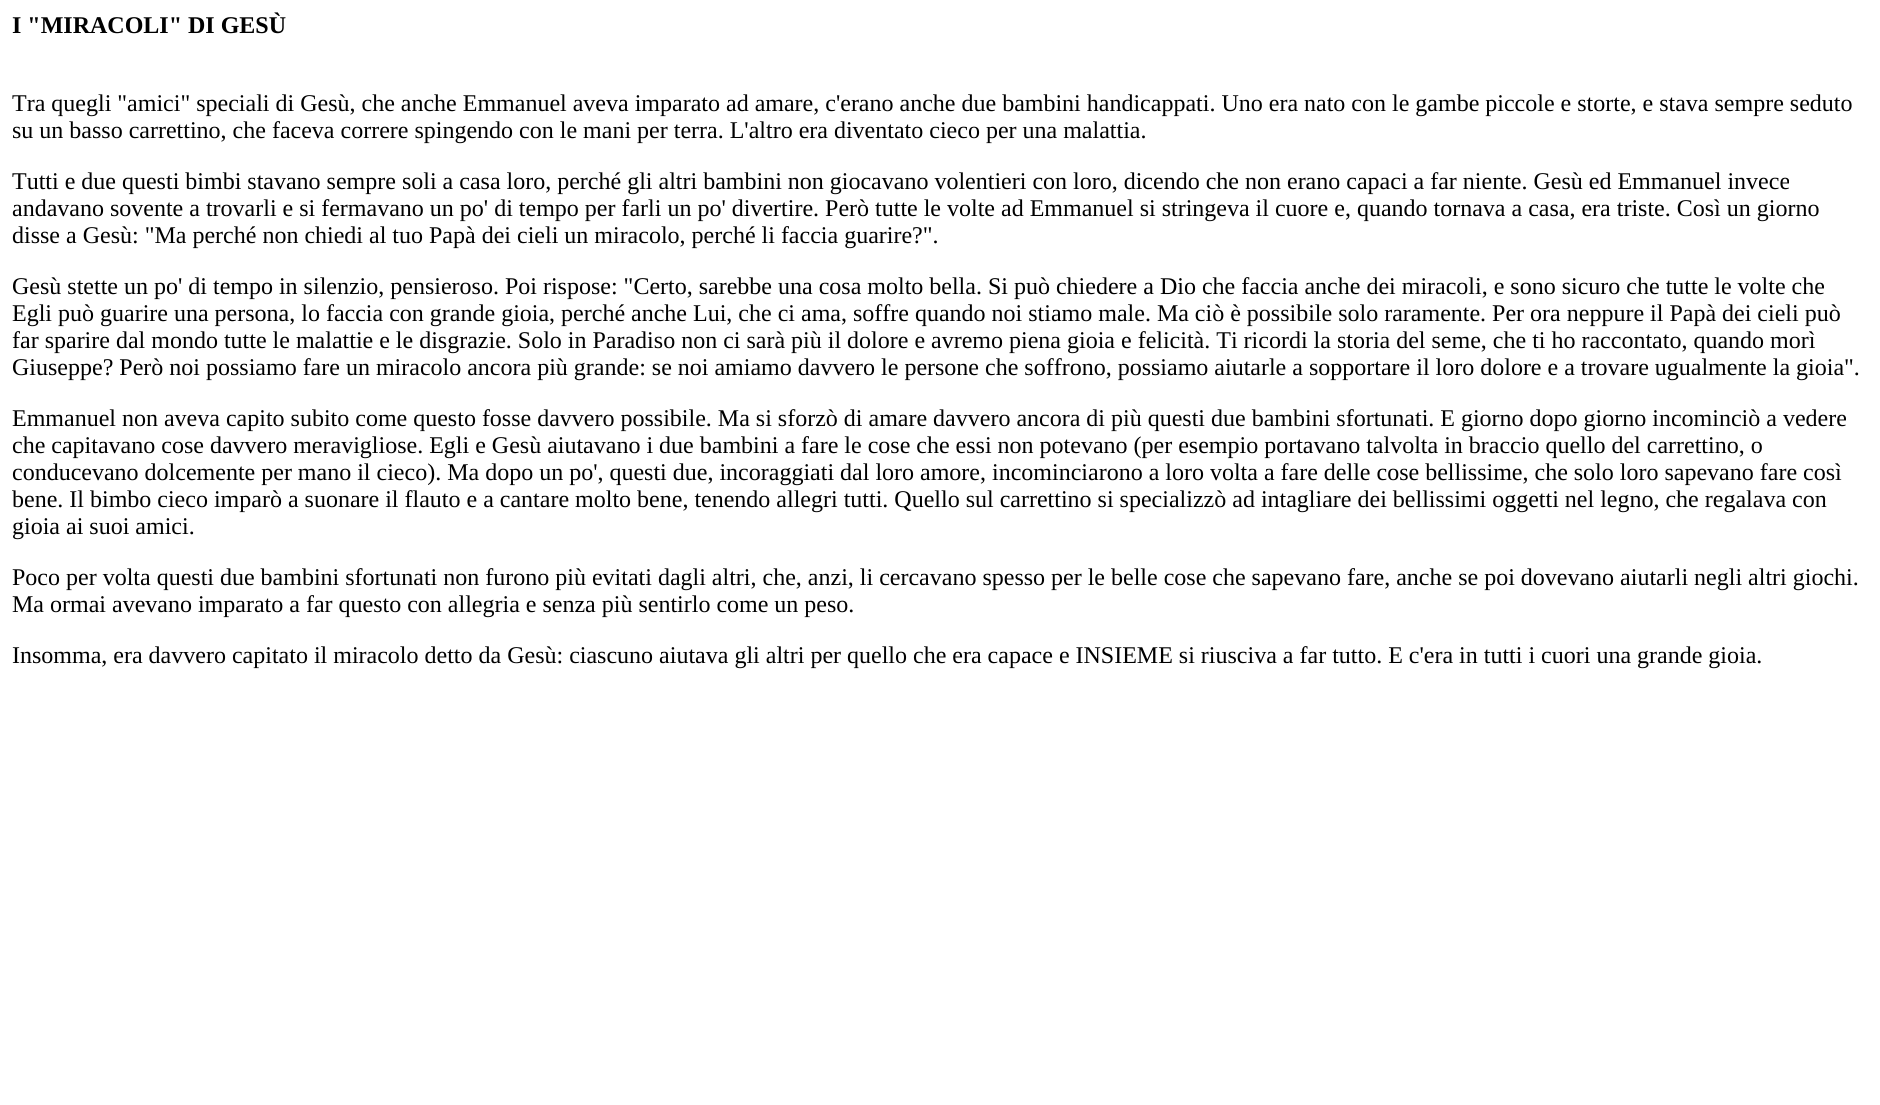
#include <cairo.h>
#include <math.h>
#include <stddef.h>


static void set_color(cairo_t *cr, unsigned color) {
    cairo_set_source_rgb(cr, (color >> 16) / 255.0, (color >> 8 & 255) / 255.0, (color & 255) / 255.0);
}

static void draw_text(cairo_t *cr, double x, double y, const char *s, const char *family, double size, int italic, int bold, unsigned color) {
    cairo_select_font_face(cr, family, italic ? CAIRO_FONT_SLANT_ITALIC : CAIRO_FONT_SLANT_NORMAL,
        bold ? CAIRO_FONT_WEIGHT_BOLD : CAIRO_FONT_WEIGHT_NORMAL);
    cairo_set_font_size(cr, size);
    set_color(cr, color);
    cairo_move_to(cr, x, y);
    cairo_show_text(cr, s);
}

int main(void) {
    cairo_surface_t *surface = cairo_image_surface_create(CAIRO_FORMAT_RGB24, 1880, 1105);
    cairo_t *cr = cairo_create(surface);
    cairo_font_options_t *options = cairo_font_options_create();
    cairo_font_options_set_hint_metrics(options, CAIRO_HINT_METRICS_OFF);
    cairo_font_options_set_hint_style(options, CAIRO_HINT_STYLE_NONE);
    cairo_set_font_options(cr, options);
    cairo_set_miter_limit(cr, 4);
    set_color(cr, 0xFFFFFF);
    cairo_paint(cr);
    draw_text(cr, 12, 33, "I \"MIRACOLI\" DI GESÙ", "Liberation Serif", 24, 0, 1, 0x000000);
    draw_text(cr, 12, 111, "Tra quegli \"amici\" speciali di Gesù, che anche Emmanuel aveva imparato ad amare, c'erano anche due bambini handicappati. Uno era nato con le gambe piccole e storte, e stava sempre seduto", "Liberation Serif", 24, 0, 0, 0x000000);
    draw_text(cr, 12, 138, "su un basso carrettino, che faceva correre spingendo con le mani per terra. L'altro era diventato cieco per una malattia.", "Liberation Serif", 24, 0, 0, 0x000000);
    draw_text(cr, 12, 189, "Tutti e due questi bimbi stavano sempre soli a casa loro, perché gli altri bambini non giocavano volentieri con loro, dicendo che non erano capaci a far niente. Gesù ed Emmanuel invece", "Liberation Serif", 24, 0, 0, 0x000000);
    draw_text(cr, 12, 216, "andavano sovente a trovarli e si fermavano un po' di tempo per farli un po' divertire. Però tutte le volte ad Emmanuel si stringeva il cuore e, quando tornava a casa, era triste. Così un giorno", "Liberation Serif", 24, 0, 0, 0x000000);
    draw_text(cr, 12, 243, "disse a Gesù: \"Ma perché non chiedi al tuo Papà dei cieli un miracolo, perché li faccia guarire?\".", "Liberation Serif", 24, 0, 0, 0x000000);
    draw_text(cr, 12, 294, "Gesù stette un po' di tempo in silenzio, pensieroso. Poi rispose: \"Certo, sarebbe una cosa molto bella. Si può chiedere a Dio che faccia anche dei miracoli, e sono sicuro che tutte le volte che", "Liberation Serif", 24, 0, 0, 0x000000);
    draw_text(cr, 12, 321, "Egli può guarire una persona, lo faccia con grande gioia, perché anche Lui, che ci ama, soffre quando noi stiamo male. Ma ciò è possibile solo raramente. Per ora neppure il Papà dei cieli può", "Liberation Serif", 24, 0, 0, 0x000000);
    draw_text(cr, 12, 348, "far sparire dal mondo tutte le malattie e le disgrazie. Solo in Paradiso non ci sarà più il dolore e avremo piena gioia e felicità. Ti ricordi la storia del seme, che ti ho raccontato, quando morì", "Liberation Serif", 24, 0, 0, 0x000000);
    draw_text(cr, 12, 375, "Giuseppe? Però noi possiamo fare un miracolo ancora più grande: se noi amiamo davvero le persone che soffrono, possiamo aiutarle a sopportare il loro dolore e a trovare ugualmente la gioia\".", "Liberation Serif", 24, 0, 0, 0x000000);
    draw_text(cr, 12, 426, "Emmanuel non aveva capito subito come questo fosse davvero possibile. Ma si sforzò di amare davvero ancora di più questi due bambini sfortunati. E giorno dopo giorno incominciò a vedere", "Liberation Serif", 24, 0, 0, 0x000000);
    draw_text(cr, 12, 453, "che capitavano cose davvero meravigliose. Egli e Gesù aiutavano i due bambini a fare le cose che essi non potevano (per esempio portavano talvolta in braccio quello del carrettino, o", "Liberation Serif", 24, 0, 0, 0x000000);
    draw_text(cr, 12, 480, "conducevano dolcemente per mano il cieco). Ma dopo un po', questi due, incoraggiati dal loro amore, incominciarono a loro volta a fare delle cose bellissime, che solo loro sapevano fare così", "Liberation Serif", 24, 0, 0, 0x000000);
    draw_text(cr, 12, 507, "bene. Il bimbo cieco imparò a suonare il flauto e a cantare molto bene, tenendo allegri tutti. Quello sul carrettino si specializzò ad intagliare dei bellissimi oggetti nel legno, che regalava con", "Liberation Serif", 24, 0, 0, 0x000000);
    draw_text(cr, 12, 534, "gioia ai suoi amici.", "Liberation Serif", 24, 0, 0, 0x000000);
    draw_text(cr, 12, 585, "Poco per volta questi due bambini sfortunati non furono più evitati dagli altri, che, anzi, li cercavano spesso per le belle cose che sapevano fare, anche se poi dovevano aiutarli negli altri giochi.", "Liberation Serif", 24, 0, 0, 0x000000);
    draw_text(cr, 12, 612, "Ma ormai avevano imparato a far questo con allegria e senza più sentirlo come un peso.", "Liberation Serif", 24, 0, 0, 0x000000);
    draw_text(cr, 12, 663, "Insomma, era davvero capitato il miracolo detto da Gesù: ciascuno aiutava gli altri per quello che era capace e INSIEME si riusciva a far tutto. E c'era in tutti i cuori una grande gioia.", "Liberation Serif", 24, 0, 0, 0x000000);
    cairo_surface_write_to_png(surface, "output.png");
    cairo_font_options_destroy(options);
    cairo_destroy(cr);
    cairo_surface_destroy(surface);
    return 0;
}
